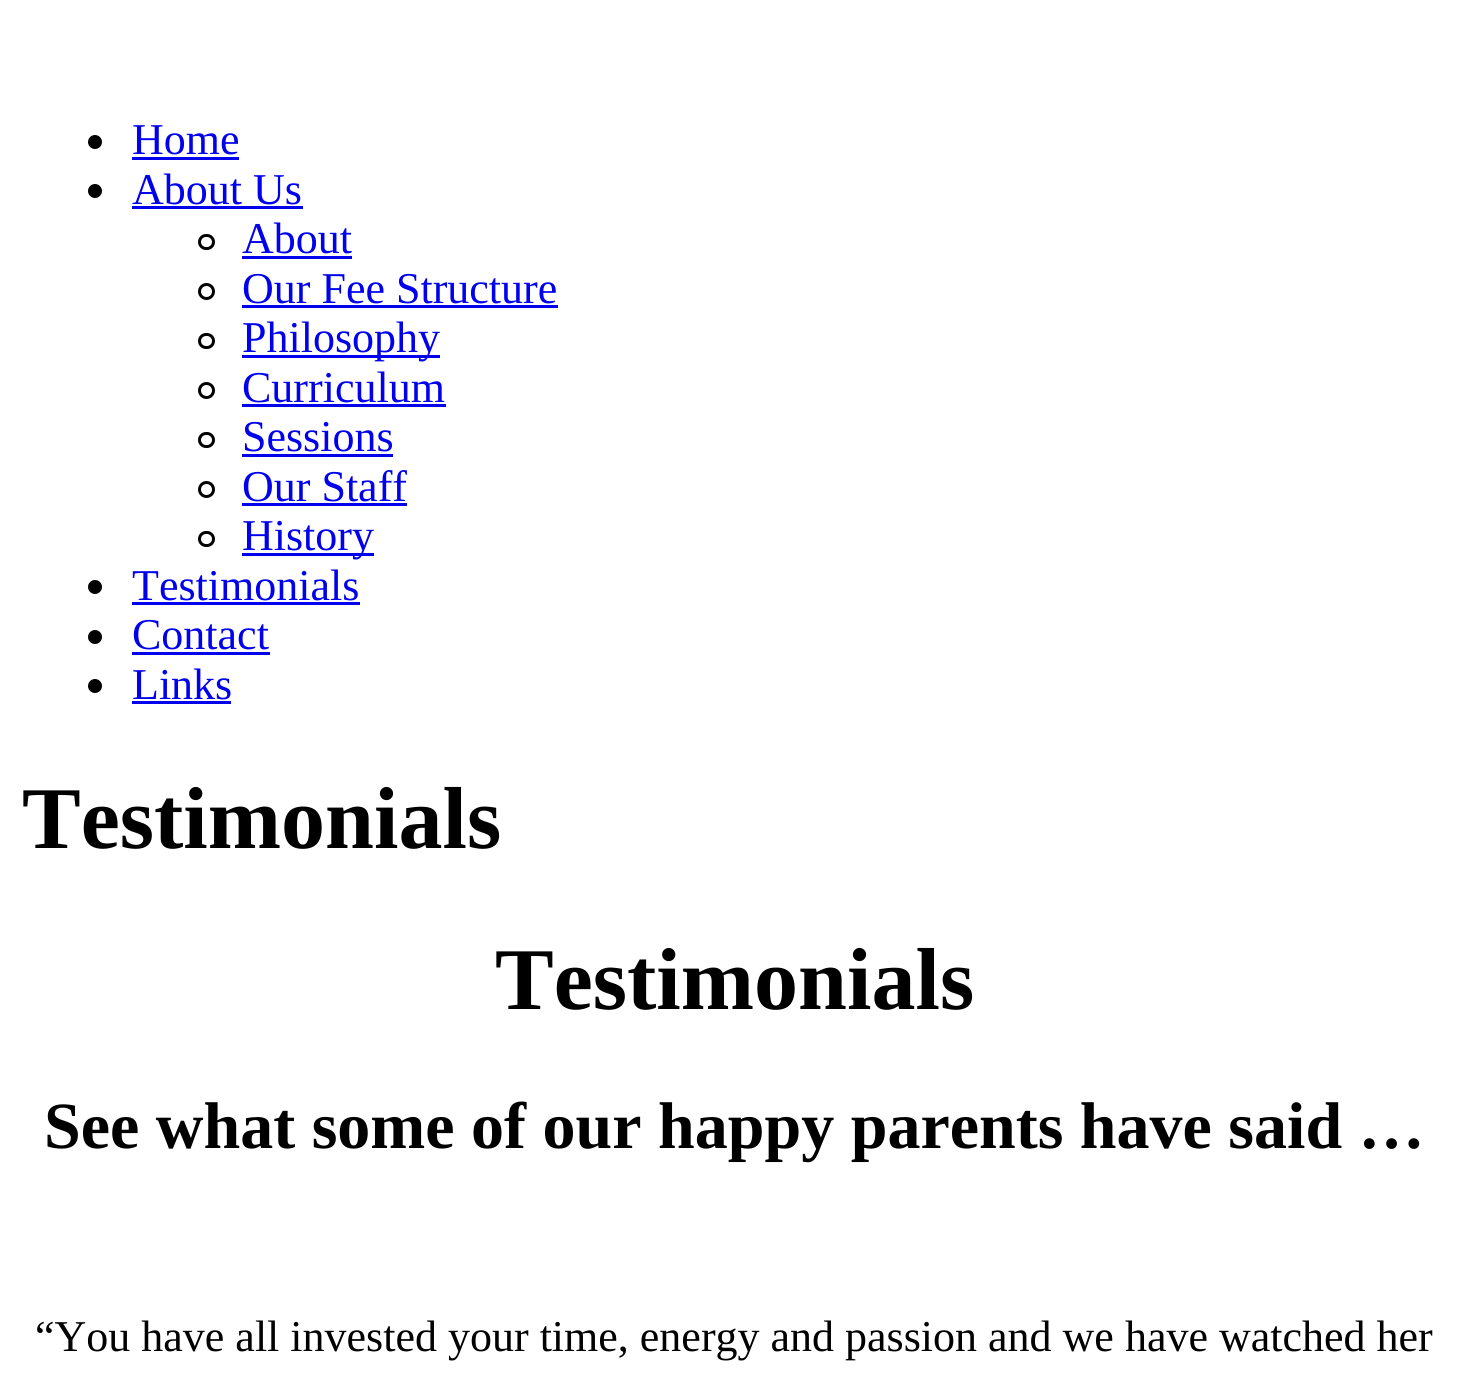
#include <cairo.h>
#include <math.h>
#include <stddef.h>


static void set_color(cairo_t *cr, unsigned color) {
    cairo_set_source_rgb(cr, (color >> 16) / 255.0, (color >> 8 & 255) / 255.0, (color & 255) / 255.0);
}

static void draw_text(cairo_t *cr, double x, double y, const char *s, const char *family, double size, int italic, int bold, unsigned color) {
    cairo_select_font_face(cr, family, italic ? CAIRO_FONT_SLANT_ITALIC : CAIRO_FONT_SLANT_NORMAL,
        bold ? CAIRO_FONT_WEIGHT_BOLD : CAIRO_FONT_WEIGHT_NORMAL);
    cairo_set_font_size(cr, size);
    set_color(cr, color);
    cairo_move_to(cr, x, y);
    cairo_show_text(cr, s);
}

static void fill_rect(cairo_t *cr, double x, double y, double w, double h, unsigned color) {
    set_color(cr, color);
    cairo_rectangle(cr, x, y, w, h);
    cairo_fill(cr);
}

static void rounded_rect(cairo_t *cr, double x, double y, double w, double h, double r) {
    cairo_new_sub_path(cr);
    cairo_arc(cr, x + w - r, y + h - r, r, 0, M_PI / 2);
    cairo_arc(cr, x + r, y + h - r, r, M_PI / 2, M_PI);
    cairo_arc(cr, x + r, y + r, r, M_PI, 1.5 * M_PI);
    cairo_arc(cr, x + w - r, y + r, r, 1.5 * M_PI, 2 * M_PI);
    cairo_close_path(cr);
}

int main(void) {
    cairo_surface_t *surface = cairo_image_surface_create(CAIRO_FORMAT_RGB24, 1467, 1390);
    cairo_t *cr = cairo_create(surface);
    cairo_font_options_t *options = cairo_font_options_create();
    cairo_font_options_set_hint_metrics(options, CAIRO_HINT_METRICS_OFF);
    cairo_font_options_set_hint_style(options, CAIRO_HINT_STYLE_NONE);
    cairo_set_font_options(cr, options);
    cairo_set_miter_limit(cr, 4);
    set_color(cr, 0xFFFFFF);
    cairo_paint(cr);
    set_color(cr, 0x000000);
    cairo_arc(cr, 95, 142, 7, 0, 2 * M_PI);
    cairo_fill(cr);
    draw_text(cr, 132, 154, "Home", "Liberation Serif", 44, 0, 0, 0x0000EE);
    fill_rect(cr, 132, 157, 107, 3, 0x0000EE);
    set_color(cr, 0x000000);
    cairo_new_path(cr);
    cairo_arc(cr, 95, 191, 7, 0, 2 * M_PI);
    cairo_fill(cr);
    draw_text(cr, 132, 204, "About Us", "Liberation Serif", 44, 0, 0, 0x0000EE);
    fill_rect(cr, 132, 206, 171, 3, 0x0000EE);
    rounded_rect(cr, 199.5, 235.5, 14, 13, 6.5);
    set_color(cr, 0x000000);
    cairo_set_line_width(cr, 3);
    cairo_stroke(cr);
    draw_text(cr, 242, 253, "About", "Liberation Serif", 44, 0, 0, 0x0000EE);
    fill_rect(cr, 242, 256, 110, 3, 0x0000EE);
    cairo_new_path(cr);
    cairo_arc(cr, 206.5, 291.5, 7, 0, 2 * M_PI);
    set_color(cr, 0x000000);
    cairo_stroke(cr);
    draw_text(cr, 242, 303, "Our Fee Structure", "Liberation Serif", 44, 0, 0, 0x0000EE);
    fill_rect(cr, 242, 305, 316, 3, 0x0000EE);
    rounded_rect(cr, 199.5, 334.5, 14, 13, 6.5);
    set_color(cr, 0x000000);
    cairo_stroke(cr);
    fill_rect(cr, 242, 355, 198, 3, 0x0000EE);
    draw_text(cr, 242, 352, "Philosophy", "Liberation Serif", 44, 0, 0, 0x0000EE);
    cairo_new_path(cr);
    cairo_arc(cr, 206.5, 390.5, 7, 0, 2 * M_PI);
    set_color(cr, 0x000000);
    cairo_stroke(cr);
    draw_text(cr, 242, 402, "Curriculum", "Liberation Serif", 44, 0, 0, 0x0000EE);
    fill_rect(cr, 242, 404, 204, 3, 0x0000EE);
    rounded_rect(cr, 199.5, 433.5, 14, 13, 6.5);
    set_color(cr, 0x000000);
    cairo_stroke(cr);
    draw_text(cr, 242, 451, "Sessions", "Liberation Serif", 44, 0, 0, 0x0000EE);
    fill_rect(cr, 242, 454, 151, 3, 0x0000EE);
    cairo_new_path(cr);
    cairo_arc(cr, 206.5, 489.5, 7, 0, 2 * M_PI);
    set_color(cr, 0x000000);
    cairo_stroke(cr);
    draw_text(cr, 242, 501, "Our Staff", "Liberation Serif", 44, 0, 0, 0x0000EE);
    fill_rect(cr, 242, 503, 165, 3, 0x0000EE);
    rounded_rect(cr, 199.5, 532.5, 14, 13, 6.5);
    set_color(cr, 0x000000);
    cairo_stroke(cr);
    fill_rect(cr, 242, 553, 132, 3, 0x0000EE);
    draw_text(cr, 242, 550, "History", "Liberation Serif", 44, 0, 0, 0x0000EE);
    set_color(cr, 0x000000);
    cairo_new_path(cr);
    cairo_arc(cr, 95, 587, 7, 0, 2 * M_PI);
    cairo_fill(cr);
    draw_text(cr, 132, 600, "Testimonials", "Liberation Serif", 44, 0, 0, 0x0000EE);
    fill_rect(cr, 132, 602, 228, 3, 0x0000EE);
    set_color(cr, 0x000000);
    cairo_new_path(cr);
    cairo_arc(cr, 95, 637, 7, 0, 2 * M_PI);
    cairo_fill(cr);
    draw_text(cr, 132, 649, "Contact", "Liberation Serif", 44, 0, 0, 0x0000EE);
    fill_rect(cr, 132, 652, 138, 3, 0x0000EE);
    set_color(cr, 0x000000);
    cairo_new_path(cr);
    cairo_arc(cr, 95, 686, 7, 0, 2 * M_PI);
    cairo_fill(cr);
    draw_text(cr, 132, 699, "Links", "Liberation Serif", 44, 0, 0, 0x0000EE);
    fill_rect(cr, 132, 701, 99, 3, 0x0000EE);
    draw_text(cr, 22, 848, "Testimonials", "Liberation Serif", 88, 0, 1, 0x000000);
    draw_text(cr, 495, 1009, "Testimonials", "Liberation Serif", 88, 0, 1, 0x000000);
    draw_text(cr, 44, 1148, "See what some of our happy parents have said …", "Liberation Serif", 66, 0, 1, 0x000000);
    draw_text(cr, 35, 1351, "“You have all invested your time, energy and passion and we have watched her", "Liberation Serif", 44, 0, 0, 0x000000);
    cairo_surface_write_to_png(surface, "output.png");
    cairo_font_options_destroy(options);
    cairo_destroy(cr);
    cairo_surface_destroy(surface);
    return 0;
}
